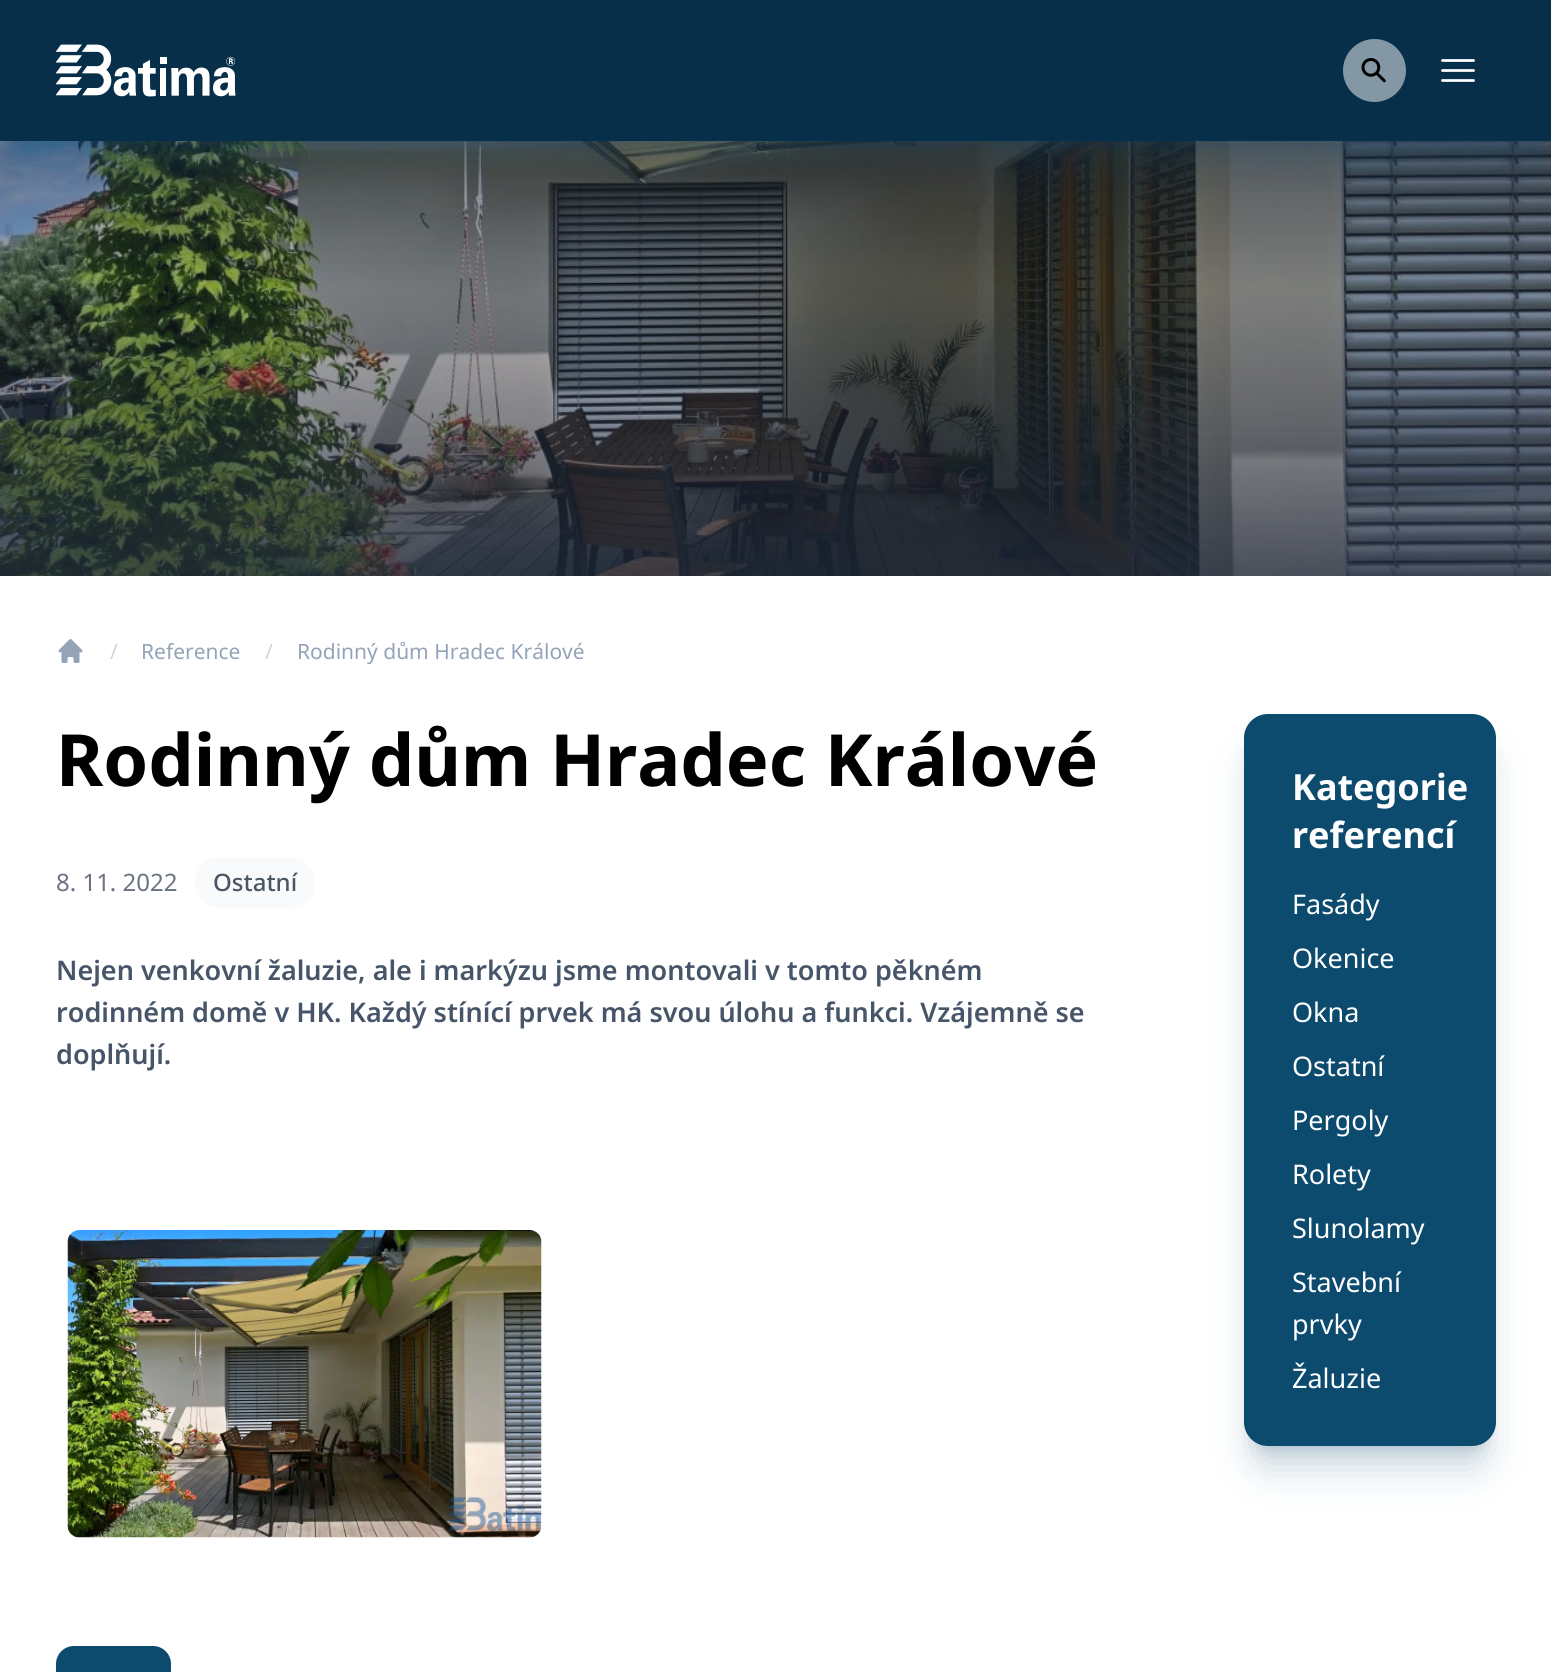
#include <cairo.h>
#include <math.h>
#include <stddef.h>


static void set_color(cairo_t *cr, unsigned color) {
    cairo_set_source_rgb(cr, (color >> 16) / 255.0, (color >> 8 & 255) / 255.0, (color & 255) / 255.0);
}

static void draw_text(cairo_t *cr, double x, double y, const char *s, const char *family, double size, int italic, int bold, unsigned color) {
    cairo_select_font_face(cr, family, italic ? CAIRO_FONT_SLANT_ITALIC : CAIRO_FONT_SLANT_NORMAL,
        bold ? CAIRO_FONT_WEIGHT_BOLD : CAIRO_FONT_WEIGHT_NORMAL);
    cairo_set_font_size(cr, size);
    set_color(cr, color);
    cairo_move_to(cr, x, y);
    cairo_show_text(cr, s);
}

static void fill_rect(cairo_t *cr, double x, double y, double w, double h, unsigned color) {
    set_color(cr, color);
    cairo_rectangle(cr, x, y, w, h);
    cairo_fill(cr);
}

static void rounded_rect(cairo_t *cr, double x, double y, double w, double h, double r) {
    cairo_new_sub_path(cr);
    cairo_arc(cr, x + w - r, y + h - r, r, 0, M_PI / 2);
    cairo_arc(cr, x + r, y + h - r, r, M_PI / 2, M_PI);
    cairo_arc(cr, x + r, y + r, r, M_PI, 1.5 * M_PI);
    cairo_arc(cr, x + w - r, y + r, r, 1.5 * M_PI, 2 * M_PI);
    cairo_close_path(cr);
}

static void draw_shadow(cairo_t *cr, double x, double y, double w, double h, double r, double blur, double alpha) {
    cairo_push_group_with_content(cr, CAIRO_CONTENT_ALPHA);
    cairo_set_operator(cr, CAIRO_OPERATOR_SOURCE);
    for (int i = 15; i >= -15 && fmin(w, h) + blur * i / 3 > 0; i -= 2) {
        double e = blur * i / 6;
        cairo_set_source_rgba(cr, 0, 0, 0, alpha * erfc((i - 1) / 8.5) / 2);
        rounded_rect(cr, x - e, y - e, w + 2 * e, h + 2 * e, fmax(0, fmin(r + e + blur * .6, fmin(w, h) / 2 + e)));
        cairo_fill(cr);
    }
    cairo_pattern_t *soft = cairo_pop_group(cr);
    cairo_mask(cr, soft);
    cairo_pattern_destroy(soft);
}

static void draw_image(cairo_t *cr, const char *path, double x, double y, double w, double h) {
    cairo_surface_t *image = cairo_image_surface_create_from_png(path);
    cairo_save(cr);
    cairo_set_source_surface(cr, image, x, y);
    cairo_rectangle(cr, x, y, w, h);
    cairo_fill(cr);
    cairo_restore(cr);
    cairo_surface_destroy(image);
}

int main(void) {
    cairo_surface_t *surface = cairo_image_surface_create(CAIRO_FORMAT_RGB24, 1551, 1672);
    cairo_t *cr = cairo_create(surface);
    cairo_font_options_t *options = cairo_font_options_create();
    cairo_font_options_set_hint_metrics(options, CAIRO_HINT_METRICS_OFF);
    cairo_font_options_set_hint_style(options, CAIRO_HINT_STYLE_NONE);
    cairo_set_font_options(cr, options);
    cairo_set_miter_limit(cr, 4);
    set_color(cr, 0xFFFFFF);
    cairo_paint(cr);
    draw_image(cr, "assets/img3.png", 0, 141, 1551, 435);
    set_color(cr, 0x0C4A6E);
    draw_shadow(cr, 9, 21, 1533, 123, 0, 7.5, 0.2);
    draw_shadow(cr, 8, 38, 1536, 126, 0, 19, 0.2);
    fill_rect(cr, 0, 0, 1551, 141, 0x082F49);
    draw_image(cr, "assets/img1.png", 56, 44, 180, 53);
    set_color(cr, 0x8497A4);
    cairo_arc(cr, 1374.5, 70.5, 31.5, 0, 2 * M_PI);
    cairo_fill(cr);
    draw_image(cr, "assets/img2.png", 1361, 58, 25, 25);
    cairo_new_path(cr);
    cairo_move_to(cr, 1442.5, 60.5);
    cairo_line_to(cr, 1473.5, 60.5);
    cairo_move_to(cr, 1442.5, 70.5);
    cairo_line_to(cr, 1473.5, 70.5);
    cairo_move_to(cr, 1442.5, 80.5);
    cairo_line_to(cr, 1473.5, 80.5);
    set_color(cr, 0xFFFFFF);
    cairo_set_line_width(cr, 2.8);
    cairo_set_line_cap(cr, CAIRO_LINE_CAP_ROUND);
    cairo_set_line_join(cr, CAIRO_LINE_JOIN_ROUND);
    cairo_stroke(cr);
    draw_image(cr, "assets/img4.png", 58, 639, 25, 24);
    draw_text(cr, 110, 659, "/", "Noto Sans", 21, 0, 0, 0xD1D5DB);
    draw_text(cr, 141, 659, "Reference", "Noto Sans", 21, 0, 0, 0x94A3B8);
    draw_text(cr, 265, 659, "/", "Noto Sans", 21, 0, 0, 0xD1D5DB);
    draw_text(cr, 297, 659, "Rodinný dům Hradec Králové", "Noto Sans", 21, 0, 0, 0x94A3B8);
    draw_text(cr, 56, 786, "Rodinný dům Hradec Králové", "Noto Sans", 72, 0, 1, 0x000000);
    draw_text(cr, 56, 891, "8. 11. 2022", "Noto Sans", 24, 0, 0, 0x6B7280);
    set_color(cr, 0xF9FAFB);
    rounded_rect(cr, 195, 857, 120, 51, 25.5);
    cairo_fill(cr);
    draw_text(cr, 213, 891, "Ostatní", "Noto Sans Medium", 24, 0, 0, 0x4B5563);
    draw_text(cr, 56, 980, "Nejen venkovní žaluzie, ale i markýzu jsme montovali v tomto pěkném", "Noto Sans SemiBold", 27, 0, 0, 0x475569);
    draw_text(cr, 56, 1022, "rodinném domě v HK. Každý stínící prvek má svou úlohu a funkci. Vzájemně se", "Noto Sans SemiBold", 27, 0, 0, 0x475569);
    draw_text(cr, 56, 1064, "doplňují.", "Noto Sans SemiBold", 27, 0, 0, 0x475569);
    draw_image(cr, "assets/img5.png", 67, 1230, 475, 308);
    set_color(cr, 0x0C4A6E);
    rounded_rect(cr, 56, 1646, 115, 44, 18);
    cairo_fill(cr);
    set_color(cr, 0x0C4A6E);
    draw_shadow(cr, 1253, 735, 234, 714, 15, 7.5, 0.2);
    draw_shadow(cr, 1251, 752, 237, 717, 17, 19, 0.2);
    set_color(cr, 0x0C4A6E);
    rounded_rect(cr, 1244, 714, 252, 732, 24);
    cairo_fill(cr);
    draw_text(cr, 1292, 800, "Kategorie", "Noto Sans", 36, 0, 1, 0xFFFFFF);
    draw_text(cr, 1292, 848, "referencí", "Noto Sans", 36, 0, 1, 0xFFFFFF);
    draw_text(cr, 1292, 914, "Fasády", "Noto Sans", 27, 0, 0, 0xFFFFFF);
    draw_text(cr, 1292, 968, "Okenice", "Noto Sans", 27, 0, 0, 0xFFFFFF);
    draw_text(cr, 1292, 1022, "Okna", "Noto Sans", 27, 0, 0, 0xFFFFFF);
    draw_text(cr, 1292, 1076, "Ostatní", "Noto Sans", 27, 0, 0, 0xFFFFFF);
    draw_text(cr, 1292, 1130, "Pergoly", "Noto Sans", 27, 0, 0, 0xFFFFFF);
    draw_text(cr, 1292, 1184, "Rolety", "Noto Sans", 27, 0, 0, 0xFFFFFF);
    draw_text(cr, 1292, 1238, "Slunolamy", "Noto Sans", 27, 0, 0, 0xFFFFFF);
    draw_text(cr, 1292, 1292, "Stavební", "Noto Sans", 27, 0, 0, 0xFFFFFF);
    draw_text(cr, 1292, 1334, "prvky", "Noto Sans", 27, 0, 0, 0xFFFFFF);
    draw_text(cr, 1292, 1388, "Žaluzie", "Noto Sans", 27, 0, 0, 0xFFFFFF);
    cairo_surface_write_to_png(surface, "output.png");
    cairo_font_options_destroy(options);
    cairo_destroy(cr);
    cairo_surface_destroy(surface);
    return 0;
}
